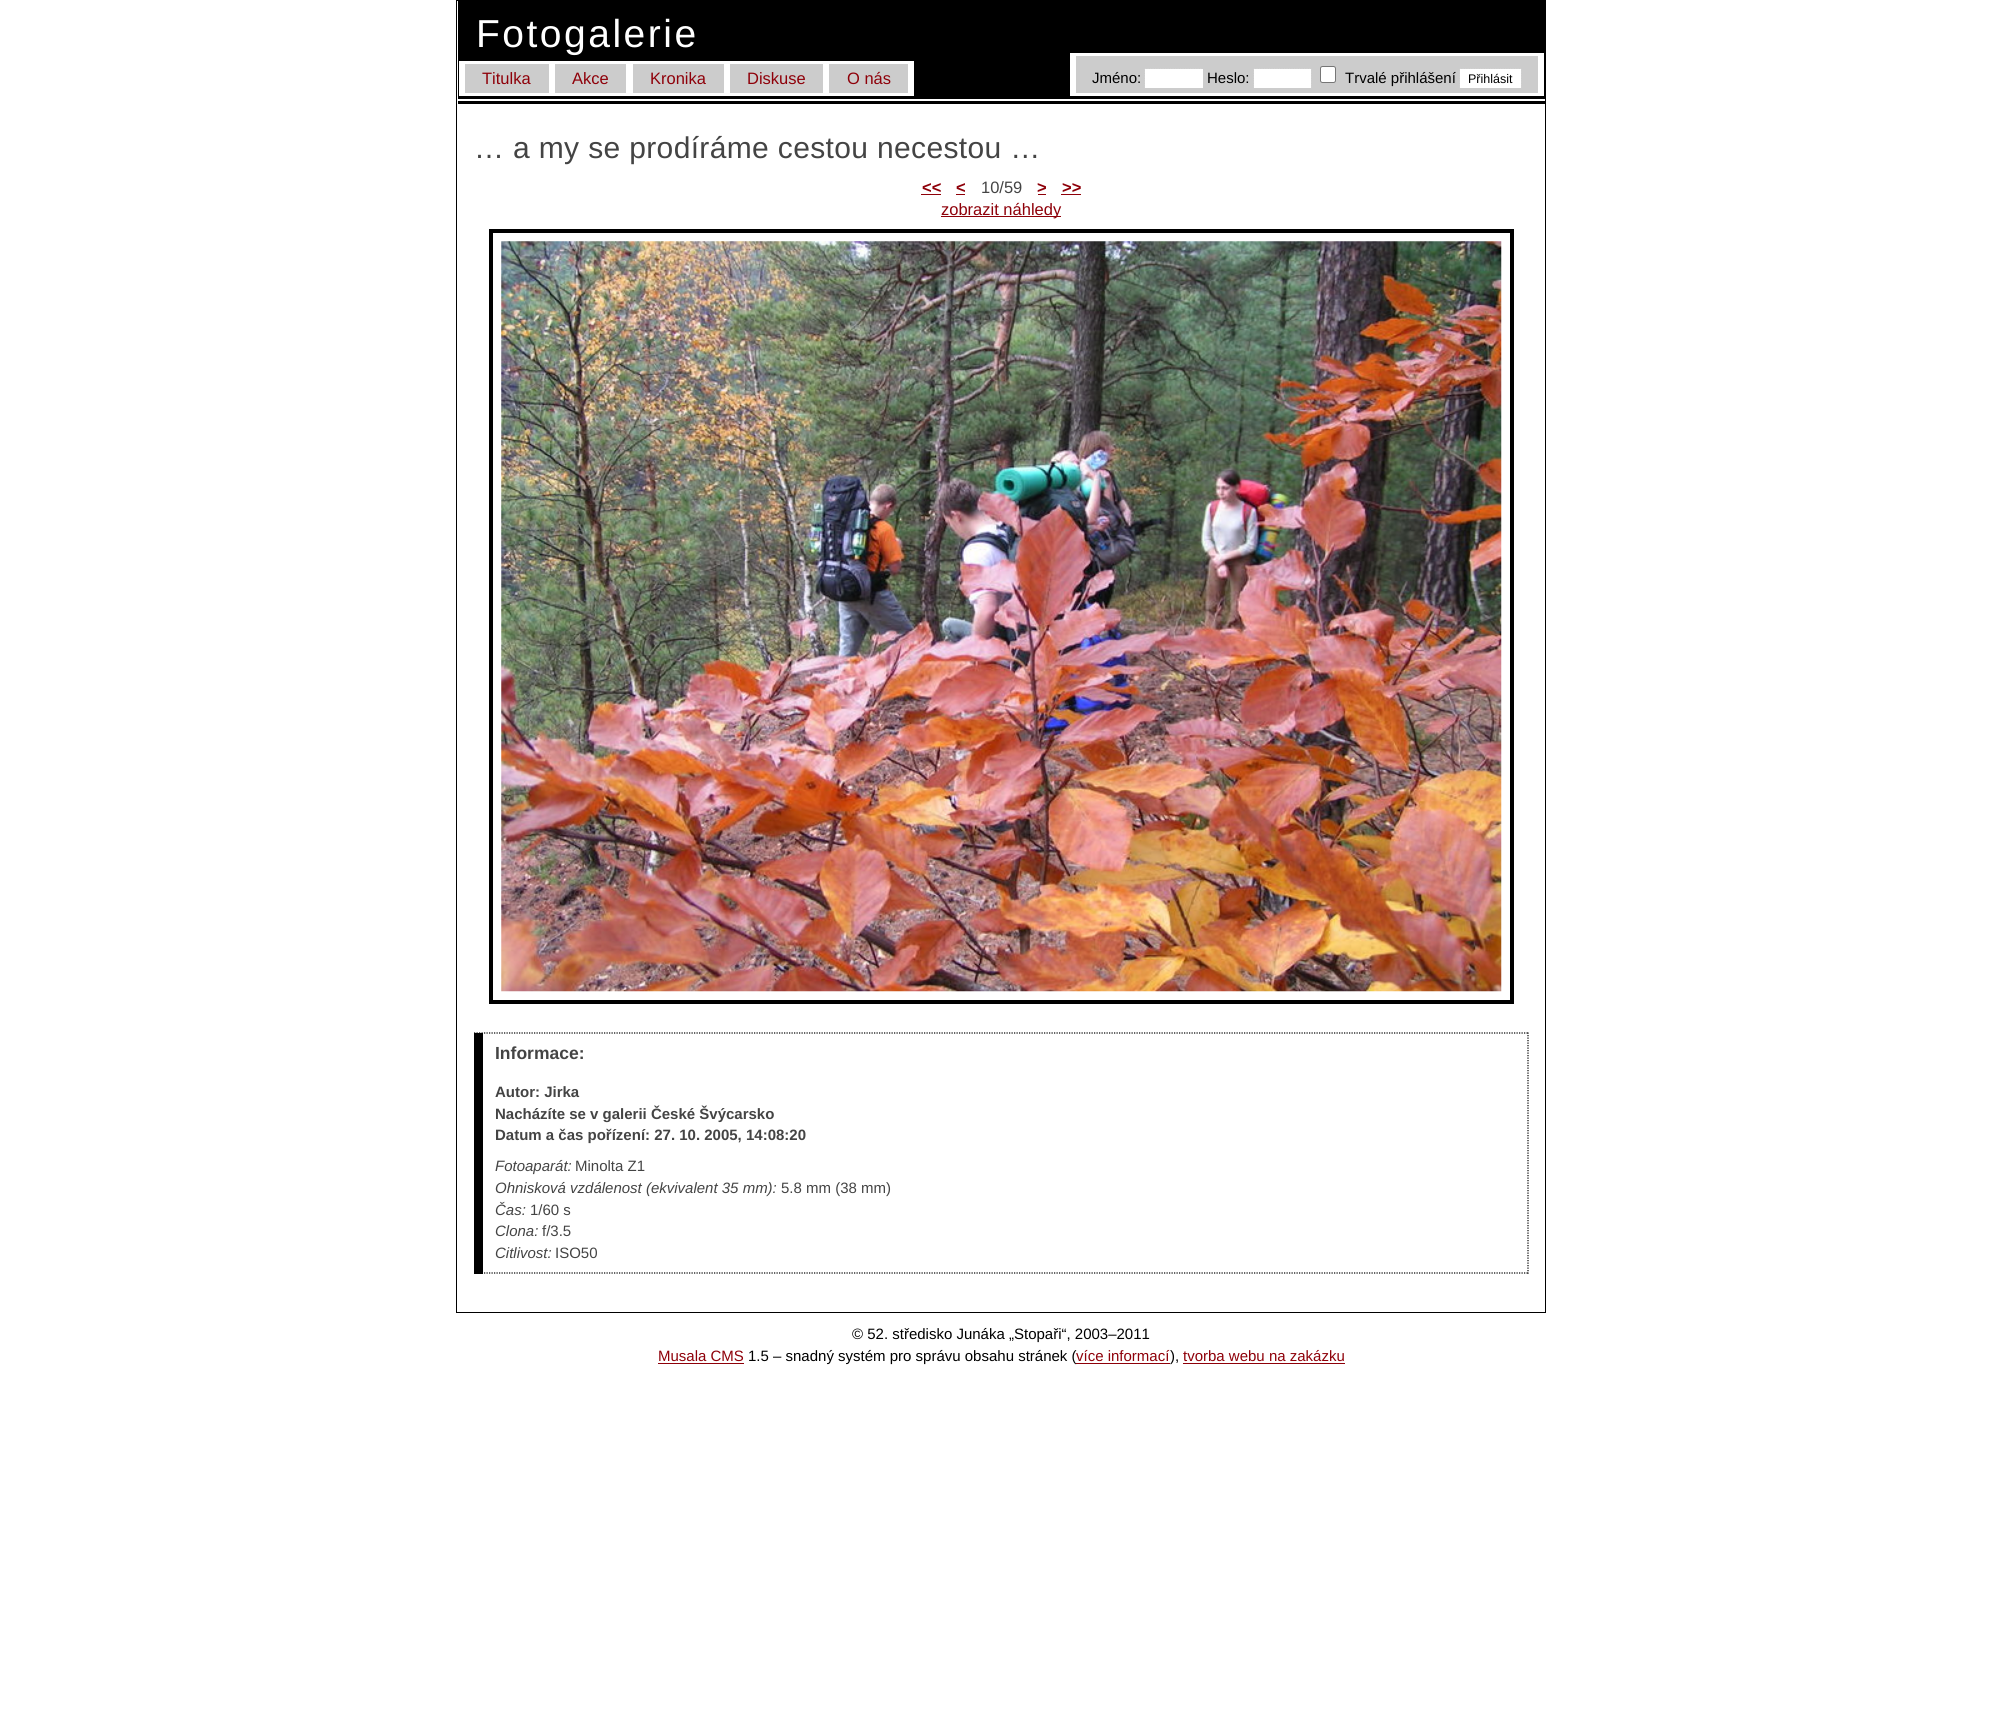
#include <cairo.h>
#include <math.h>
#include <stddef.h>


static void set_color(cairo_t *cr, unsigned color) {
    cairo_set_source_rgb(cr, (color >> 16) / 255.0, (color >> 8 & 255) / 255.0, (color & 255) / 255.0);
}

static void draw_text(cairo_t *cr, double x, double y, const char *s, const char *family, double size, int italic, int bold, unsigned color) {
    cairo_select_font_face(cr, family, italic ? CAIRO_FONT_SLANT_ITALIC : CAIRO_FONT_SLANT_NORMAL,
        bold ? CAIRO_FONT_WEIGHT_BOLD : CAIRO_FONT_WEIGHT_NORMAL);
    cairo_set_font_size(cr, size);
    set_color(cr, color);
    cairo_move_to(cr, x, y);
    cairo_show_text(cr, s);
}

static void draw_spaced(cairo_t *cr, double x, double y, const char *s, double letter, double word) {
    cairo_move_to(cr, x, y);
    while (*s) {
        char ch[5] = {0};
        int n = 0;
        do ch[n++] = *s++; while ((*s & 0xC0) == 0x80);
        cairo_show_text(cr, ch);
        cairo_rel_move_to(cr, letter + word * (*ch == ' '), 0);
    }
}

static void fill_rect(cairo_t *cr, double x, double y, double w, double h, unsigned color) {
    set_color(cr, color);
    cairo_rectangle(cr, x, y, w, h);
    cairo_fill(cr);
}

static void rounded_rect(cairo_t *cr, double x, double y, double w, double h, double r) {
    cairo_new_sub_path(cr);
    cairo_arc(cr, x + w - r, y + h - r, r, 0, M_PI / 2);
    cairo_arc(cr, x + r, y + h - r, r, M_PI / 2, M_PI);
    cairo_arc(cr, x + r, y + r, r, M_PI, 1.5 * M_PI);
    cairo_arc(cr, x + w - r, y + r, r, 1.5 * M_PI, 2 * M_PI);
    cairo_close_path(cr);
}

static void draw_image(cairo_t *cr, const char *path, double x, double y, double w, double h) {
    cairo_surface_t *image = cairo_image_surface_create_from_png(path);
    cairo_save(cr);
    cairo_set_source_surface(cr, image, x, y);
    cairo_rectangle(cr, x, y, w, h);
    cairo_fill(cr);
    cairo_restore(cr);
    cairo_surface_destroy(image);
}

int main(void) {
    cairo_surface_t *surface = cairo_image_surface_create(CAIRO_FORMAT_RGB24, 2002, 1729);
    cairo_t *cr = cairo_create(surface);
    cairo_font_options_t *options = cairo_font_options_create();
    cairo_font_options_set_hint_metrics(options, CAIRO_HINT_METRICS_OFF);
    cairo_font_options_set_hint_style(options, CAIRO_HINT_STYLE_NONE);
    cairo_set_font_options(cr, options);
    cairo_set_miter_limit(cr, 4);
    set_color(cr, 0xFFFFFF);
    cairo_paint(cr);
    cairo_rectangle(cr, 456.5, 0.5, 1089, 1312);
    set_color(cr, 0x000000);
    cairo_set_line_width(cr, 1);
    cairo_stroke(cr);
    fill_rect(cr, 458, 1, 1087, 98, 0x000000);
    cairo_select_font_face(cr, "Liberation Sans", CAIRO_FONT_SLANT_NORMAL, CAIRO_FONT_WEIGHT_NORMAL);
    cairo_set_font_size(cr, 39);
    set_color(cr, 0xFFFFFF);
    draw_spaced(cr, 476, 47, "Fotogalerie", 2.5, 0);
    fill_rect(cr, 459, 61, 455, 3, 0xFFFFFF);
    fill_rect(cr, 908, 61, 6, 34, 0xFFFFFF);
    fill_rect(cr, 459, 93, 455, 3, 0xFFFFFF);
    fill_rect(cr, 465, 64, 84, 29, 0xCCCCCC);
    fill_rect(cr, 459, 64, 6, 29, 0xFFFFFF);
    draw_text(cr, 482, 84, "Titulka", "Liberation Sans", 16.5, 0, 0, 0x8E0009);
    fill_rect(cr, 555, 64, 71, 29, 0xCCCCCC);
    fill_rect(cr, 549, 64, 6, 29, 0xFFFFFF);
    draw_text(cr, 572, 84, "Akce", "Liberation Sans", 16.5, 0, 0, 0x8E0009);
    fill_rect(cr, 633, 64, 91, 29, 0xCCCCCC);
    fill_rect(cr, 626, 64, 7, 29, 0xFFFFFF);
    draw_text(cr, 650, 84, "Kronika", "Liberation Sans", 16.5, 0, 0, 0x8E0009);
    fill_rect(cr, 730, 64, 93, 29, 0xCCCCCC);
    fill_rect(cr, 724, 64, 6, 29, 0xFFFFFF);
    draw_text(cr, 747, 84, "Diskuse", "Liberation Sans", 16.5, 0, 0, 0x8E0009);
    fill_rect(cr, 829, 64, 79, 29, 0xCCCCCC);
    fill_rect(cr, 823, 64, 6, 29, 0xFFFFFF);
    draw_text(cr, 847, 84, "O nás", "Liberation Sans", 16.5, 0, 0, 0x8E0009);
    fill_rect(cr, 1076, 56, 462, 37, 0xCCCCCC);
    fill_rect(cr, 1070, 53, 474, 3, 0xFFFFFF);
    fill_rect(cr, 1538, 53, 6, 42, 0xFFFFFF);
    fill_rect(cr, 1070, 93, 474, 3, 0xFFFFFF);
    fill_rect(cr, 1070, 53, 6, 42, 0xFFFFFF);
    draw_text(cr, 1092, 83, "Jméno:", "Liberation Sans", 15, 0, 0, 0x000000);
    fill_rect(cr, 1145, 69, 58, 19, 0xFFFFFF);
    cairo_new_path(cr);
    cairo_move_to(cr, 1145, 69.5);
    cairo_line_to(cr, 1202.5, 69.5);
    cairo_move_to(cr, 1145.5, 69);
    cairo_line_to(cr, 1145.5, 87.5);
    cairo_set_line_width(cr, 1.2);
    cairo_set_dash(cr, (double[]){1.25, 1.25}, 2, 0);
    cairo_stroke(cr);
    draw_text(cr, 1207, 83, "Heslo:", "Liberation Sans", 15, 0, 0, 0x000000);
    fill_rect(cr, 1254, 69, 57, 19, 0xFFFFFF);
    cairo_new_path(cr);
    cairo_move_to(cr, 1254, 69.5);
    cairo_line_to(cr, 1311, 69.5);
    cairo_move_to(cr, 1310.5, 69);
    cairo_line_to(cr, 1310.5, 87.5);
    cairo_move_to(cr, 1254.5, 69);
    cairo_line_to(cr, 1254.5, 87.5);
    cairo_stroke(cr);
    rounded_rect(cr, 1320.5, 66.5, 15, 16, 2);
    cairo_fill_preserve(cr);
    set_color(cr, 0x767676);
    cairo_set_line_width(cr, 1);
    cairo_set_dash(cr, NULL, 0, 0);
    cairo_stroke(cr);
    draw_text(cr, 1345, 83, "Trvalé přihlášení", "Liberation Sans", 15, 0, 0, 0x000000);
    fill_rect(cr, 1460, 69, 61, 19, 0xFFFFFF);
    cairo_new_path(cr);
    cairo_move_to(cr, 1460, 69.5);
    cairo_line_to(cr, 1521, 69.5);
    cairo_move_to(cr, 1520.5, 69);
    cairo_line_to(cr, 1520.5, 87.5);
    cairo_move_to(cr, 1460.5, 69);
    cairo_line_to(cr, 1460.5, 87.5);
    cairo_set_line_width(cr, 1.2);
    cairo_set_dash(cr, (double[]){1.25, 1.25}, 2, 0);
    cairo_stroke(cr);
    draw_text(cr, 1468, 83, "Přihlásit", "Liberation Sans", 12.5, 0, 0, 0x000000);
    fill_rect(cr, 458, 101, 1087, 3, 0x000000);
    cairo_set_font_size(cr, 30);
    set_color(cr, 0x444444);
    draw_spaced(cr, 474, 158, "… a my se prodíráme cestou necestou …", 0.35, 0);
    draw_text(cr, 922, 193, "<<", "Liberation Sans", 16.5, 0, 1, 0x8E0009);
    fill_rect(cr, 921, 194, 20, 1, 0x8E0009);
    draw_text(cr, 956, 193, "<", "Liberation Sans", 16.5, 0, 1, 0x8E0009);
    fill_rect(cr, 956, 194, 9, 1, 0x8E0009);
    draw_text(cr, 981, 193, "10/59", "Liberation Sans", 16.5, 0, 0, 0x444444);
    draw_text(cr, 1037, 193, ">", "Liberation Sans", 16.5, 0, 1, 0x8E0009);
    fill_rect(cr, 1038, 194, 8, 1, 0x8E0009);
    draw_text(cr, 1062, 193, ">>", "Liberation Sans", 16.5, 0, 1, 0x8E0009);
    fill_rect(cr, 1061, 194, 20, 1, 0x8E0009);
    fill_rect(cr, 941, 216, 120, 1, 0x8E0009);
    draw_text(cr, 941, 215, "zobrazit náhledy", "Liberation Sans", 16.5, 0, 0, 0x8E0009);
    cairo_rectangle(cr, 491, 231, 1021, 771);
    set_color(cr, 0x000000);
    cairo_set_line_width(cr, 4);
    cairo_set_dash(cr, NULL, 0, 0);
    cairo_stroke(cr);
    draw_image(cr, "assets/img1.png", 501, 241, 1001, 751);
    cairo_new_path(cr);
    cairo_move_to(cr, 474, 1033);
    cairo_line_to(cr, 1529, 1033);
    cairo_set_line_width(cr, 1.2);
    cairo_set_dash(cr, (double[]){1.25, 1.25}, 2, 0);
    cairo_stroke(cr);
    cairo_new_path(cr);
    cairo_move_to(cr, 1528, 1032.5);
    cairo_line_to(cr, 1528, 1274);
    cairo_stroke(cr);
    cairo_new_path(cr);
    cairo_move_to(cr, 474, 1273);
    cairo_line_to(cr, 1529, 1273);
    cairo_stroke(cr);
    fill_rect(cr, 474, 1033, 9, 241, 0x000000);
    draw_text(cr, 495, 1059, "Informace:", "Liberation Sans", 17.5, 0, 1, 0x444444);
    draw_text(cr, 495, 1097, "Autor: Jirka", "Liberation Sans", 15, 0, 1, 0x444444);
    draw_text(cr, 495, 1119, "Nacházíte se v galerii České Švýcarsko", "Liberation Sans", 15, 0, 1, 0x444444);
    draw_text(cr, 495, 1140, "Datum a čas pořízení: 27. 10. 2005, 14:08:20", "Liberation Sans", 15, 0, 1, 0x444444);
    draw_text(cr, 495, 1171, "Fotoaparát:", "Liberation Sans", 15, 1, 0, 0x444444);
    draw_text(cr, 575, 1171, "Minolta Z1", "Liberation Sans", 15, 0, 0, 0x444444);
    draw_text(cr, 495, 1193, "Ohnisková vzdálenost (ekvivalent 35 mm):", "Liberation Sans", 15, 1, 0, 0x444444);
    draw_text(cr, 781, 1193, "5.8 mm (38 mm)", "Liberation Sans", 15, 0, 0, 0x444444);
    draw_text(cr, 495, 1215, "Čas:", "Liberation Sans", 15, 1, 0, 0x444444);
    draw_text(cr, 530, 1215, "1/60 s", "Liberation Sans", 15, 0, 0, 0x444444);
    draw_text(cr, 495, 1236, "Clona:", "Liberation Sans", 15, 1, 0, 0x444444);
    draw_text(cr, 542, 1236, "f/3.5", "Liberation Sans", 15, 0, 0, 0x444444);
    draw_text(cr, 495, 1258, "Citlivost:", "Liberation Sans", 15, 1, 0, 0x444444);
    draw_text(cr, 555, 1258, "ISO50", "Liberation Sans", 15, 0, 0, 0x444444);
    draw_text(cr, 852, 1339, "© 52. středisko Junáka „Stopaři“, 2003–2011", "Liberation Sans", 15, 0, 0, 0x000000);
    draw_text(cr, 658, 1361, "Musala CMS", "Liberation Sans", 15, 0, 0, 0x8E0009);
    fill_rect(cr, 658, 1363, 86, 1, 0x8E0009);
    draw_text(cr, 748, 1361, "1.5 – snadný systém pro správu obsahu stránek (", "Liberation Sans", 15, 0, 0, 0x000000);
    draw_text(cr, 1076, 1361, "více informací", "Liberation Sans", 15, 0, 0, 0x8E0009);
    fill_rect(cr, 1076, 1363, 94, 1, 0x8E0009);
    draw_text(cr, 1170, 1361, "),", "Liberation Sans", 15, 0, 0, 0x000000);
    draw_text(cr, 1183, 1361, "tvorba webu na zakázku", "Liberation Sans", 15, 0, 0, 0x8E0009);
    fill_rect(cr, 1183, 1363, 162, 1, 0x8E0009);
    cairo_surface_write_to_png(surface, "output.png");
    cairo_font_options_destroy(options);
    cairo_destroy(cr);
    cairo_surface_destroy(surface);
    return 0;
}
